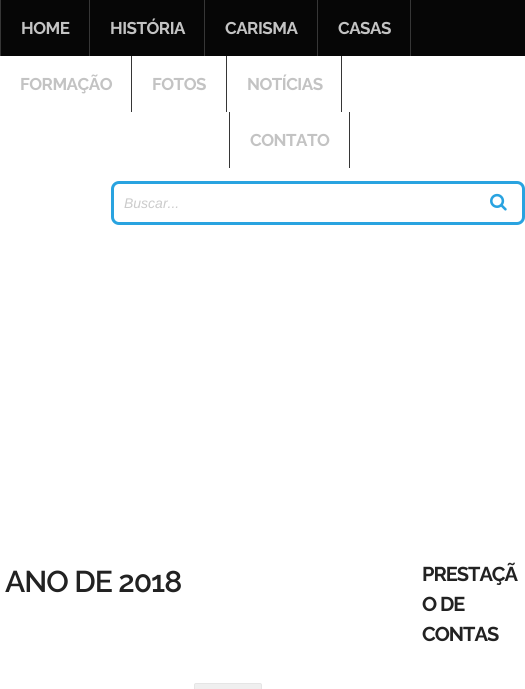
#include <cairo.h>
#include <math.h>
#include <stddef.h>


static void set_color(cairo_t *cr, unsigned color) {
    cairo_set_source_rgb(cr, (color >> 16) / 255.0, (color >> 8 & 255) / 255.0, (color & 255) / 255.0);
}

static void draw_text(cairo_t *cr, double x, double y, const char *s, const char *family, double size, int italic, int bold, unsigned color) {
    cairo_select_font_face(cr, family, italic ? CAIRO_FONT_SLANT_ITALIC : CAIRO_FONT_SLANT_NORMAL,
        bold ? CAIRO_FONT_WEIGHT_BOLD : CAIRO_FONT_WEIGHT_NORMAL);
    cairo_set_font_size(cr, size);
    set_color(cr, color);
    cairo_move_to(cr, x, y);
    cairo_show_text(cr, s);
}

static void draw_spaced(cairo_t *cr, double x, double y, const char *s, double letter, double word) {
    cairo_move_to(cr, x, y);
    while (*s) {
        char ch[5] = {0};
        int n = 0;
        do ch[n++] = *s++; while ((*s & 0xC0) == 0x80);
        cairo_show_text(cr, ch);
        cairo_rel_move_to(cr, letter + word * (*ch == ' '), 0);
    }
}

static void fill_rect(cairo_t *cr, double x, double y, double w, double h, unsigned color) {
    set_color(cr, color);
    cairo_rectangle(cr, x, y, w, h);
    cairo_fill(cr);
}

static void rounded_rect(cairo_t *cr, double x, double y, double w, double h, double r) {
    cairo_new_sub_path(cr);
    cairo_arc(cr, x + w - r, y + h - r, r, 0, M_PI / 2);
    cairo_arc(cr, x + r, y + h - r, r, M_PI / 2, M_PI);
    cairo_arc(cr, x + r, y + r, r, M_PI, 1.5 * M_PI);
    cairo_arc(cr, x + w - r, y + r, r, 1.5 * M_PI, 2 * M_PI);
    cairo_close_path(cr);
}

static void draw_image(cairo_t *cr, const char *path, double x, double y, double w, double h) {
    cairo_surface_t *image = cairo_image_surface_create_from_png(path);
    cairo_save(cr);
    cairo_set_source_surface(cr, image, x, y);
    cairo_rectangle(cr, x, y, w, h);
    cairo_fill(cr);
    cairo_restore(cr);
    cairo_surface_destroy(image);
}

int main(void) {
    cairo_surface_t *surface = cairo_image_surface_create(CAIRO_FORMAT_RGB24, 525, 689);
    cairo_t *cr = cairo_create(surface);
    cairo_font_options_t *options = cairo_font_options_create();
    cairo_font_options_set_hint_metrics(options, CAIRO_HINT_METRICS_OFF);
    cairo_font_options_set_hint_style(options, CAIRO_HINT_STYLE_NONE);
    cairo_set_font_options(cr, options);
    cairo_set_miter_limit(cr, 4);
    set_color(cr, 0xFFFFFF);
    cairo_paint(cr);
    fill_rect(cr, 1, 0, 524, 56, 0x060606);
    fill_rect(cr, 89, 0, 1, 56, 0x363636);
    fill_rect(cr, 0, 0, 1, 56, 0x363636);
    cairo_select_font_face(cr, "Raleway", CAIRO_FONT_SLANT_NORMAL, CAIRO_FONT_WEIGHT_BOLD);
    cairo_set_font_size(cr, 17);
    set_color(cr, 0xC3C3C3);
    draw_spaced(cr, 21, 34, "HOME", -0.5, 0);
    fill_rect(cr, 204, 0, 1, 56, 0x363636);
    set_color(cr, 0xC3C3C3);
    draw_spaced(cr, 110, 34, "HISTÓRIA", -0.5, 0);
    fill_rect(cr, 317, 0, 1, 56, 0x363636);
    set_color(cr, 0xC3C3C3);
    draw_spaced(cr, 225, 34, "CARISMA", -0.5, 0);
    fill_rect(cr, 410, 0, 1, 56, 0x363636);
    set_color(cr, 0xC3C3C3);
    draw_spaced(cr, 338, 34, "CASAS", -0.5, 0);
    fill_rect(cr, 131, 56, 1, 56, 0x363636);
    set_color(cr, 0xC3C3C3);
    draw_spaced(cr, 20, 90, "FORMAÇÃO", -0.5, 0);
    fill_rect(cr, 226, 56, 1, 56, 0x363636);
    set_color(cr, 0xC3C3C3);
    draw_spaced(cr, 152, 90, "FOTOS", -0.5, 0);
    fill_rect(cr, 341, 56, 1, 56, 0x363636);
    set_color(cr, 0xC3C3C3);
    draw_spaced(cr, 247, 90, "NOTÍCIAS", -0.5, 0);
    fill_rect(cr, 229, 112, 1, 56, 0x363636);
    fill_rect(cr, 349, 112, 1, 56, 0x363636);
    set_color(cr, 0xC3C3C3);
    draw_spaced(cr, 250, 146, "CONTATO", -0.5, 0);
    rounded_rect(cr, 112.5, 182.5, 411, 41, 6.5);
    set_color(cr, 0x29A3E0);
    cairo_set_line_width(cr, 3);
    cairo_stroke(cr);
    draw_text(cr, 124, 208, "Buscar...", "Liberation Sans", 14, 1, 0, 0xCBCBCB);
    draw_image(cr, "assets/img1.png", 490, 193, 17, 18);
    cairo_select_font_face(cr, "Raleway SemiBold", CAIRO_FONT_SLANT_NORMAL, CAIRO_FONT_WEIGHT_NORMAL);
    cairo_set_font_size(cr, 30);
    set_color(cr, 0x222222);
    draw_spaced(cr, 5, 592, "ANO DE 2018", -1, 0);
    set_color(cr, 0xEFEFEF);
    rounded_rect(cr, 194.5, 683.5, 67, 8, 1.5);
    cairo_fill_preserve(cr);
    set_color(cr, 0xE5E5E5);
    cairo_set_line_width(cr, 1);
    cairo_stroke(cr);
    cairo_select_font_face(cr, "Raleway", CAIRO_FONT_SLANT_NORMAL, CAIRO_FONT_WEIGHT_BOLD);
    cairo_set_font_size(cr, 20);
    set_color(cr, 0x222222);
    draw_spaced(cr, 422, 581, "PRESTAÇÃ", -1, 0);
    draw_spaced(cr, 422, 611, "O DE", -1, 0);
    draw_spaced(cr, 422, 641, "CONTAS", -1, 0);
    cairo_surface_write_to_png(surface, "output.png");
    cairo_font_options_destroy(options);
    cairo_destroy(cr);
    cairo_surface_destroy(surface);
    return 0;
}
